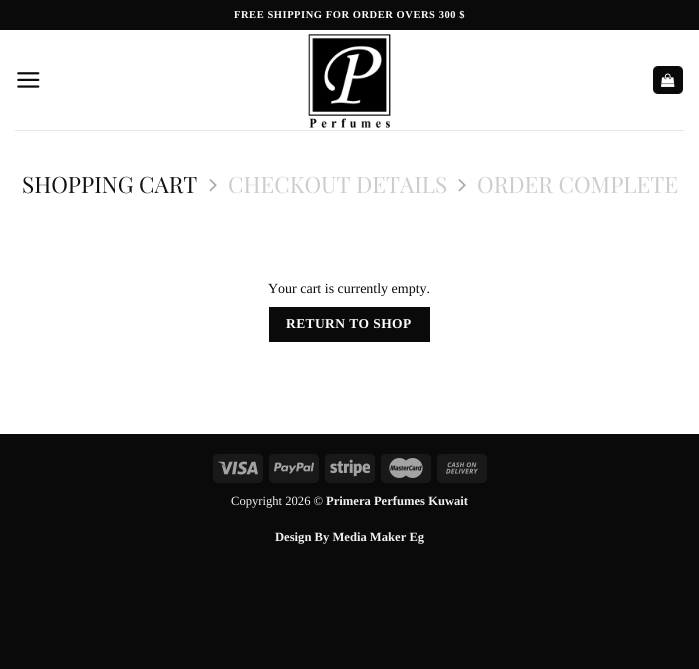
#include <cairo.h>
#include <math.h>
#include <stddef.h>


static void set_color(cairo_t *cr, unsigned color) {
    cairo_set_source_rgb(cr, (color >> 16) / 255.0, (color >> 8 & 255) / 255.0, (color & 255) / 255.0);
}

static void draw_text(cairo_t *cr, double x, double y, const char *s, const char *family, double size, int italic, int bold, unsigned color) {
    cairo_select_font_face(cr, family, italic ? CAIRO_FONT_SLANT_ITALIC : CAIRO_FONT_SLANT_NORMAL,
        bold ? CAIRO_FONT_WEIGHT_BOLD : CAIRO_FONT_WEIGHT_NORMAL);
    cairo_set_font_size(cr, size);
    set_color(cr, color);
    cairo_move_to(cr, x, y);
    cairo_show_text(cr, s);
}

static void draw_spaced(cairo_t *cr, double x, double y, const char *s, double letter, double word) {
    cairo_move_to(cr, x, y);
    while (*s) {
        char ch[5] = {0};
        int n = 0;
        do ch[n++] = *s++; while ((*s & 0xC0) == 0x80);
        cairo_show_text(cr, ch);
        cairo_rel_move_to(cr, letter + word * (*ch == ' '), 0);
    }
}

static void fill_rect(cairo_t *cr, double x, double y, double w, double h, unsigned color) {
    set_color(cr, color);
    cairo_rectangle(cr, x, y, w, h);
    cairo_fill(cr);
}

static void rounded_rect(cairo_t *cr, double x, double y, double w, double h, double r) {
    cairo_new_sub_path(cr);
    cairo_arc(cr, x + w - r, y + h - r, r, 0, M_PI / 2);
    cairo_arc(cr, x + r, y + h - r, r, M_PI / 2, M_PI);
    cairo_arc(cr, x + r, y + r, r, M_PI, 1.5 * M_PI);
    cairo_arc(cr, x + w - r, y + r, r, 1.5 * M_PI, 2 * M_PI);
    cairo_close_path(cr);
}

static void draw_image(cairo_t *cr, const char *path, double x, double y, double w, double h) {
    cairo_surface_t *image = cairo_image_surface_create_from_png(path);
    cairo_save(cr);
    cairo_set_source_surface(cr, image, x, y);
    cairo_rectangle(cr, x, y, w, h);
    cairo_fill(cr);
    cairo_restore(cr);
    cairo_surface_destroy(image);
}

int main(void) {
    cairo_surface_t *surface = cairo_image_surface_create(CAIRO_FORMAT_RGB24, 699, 669);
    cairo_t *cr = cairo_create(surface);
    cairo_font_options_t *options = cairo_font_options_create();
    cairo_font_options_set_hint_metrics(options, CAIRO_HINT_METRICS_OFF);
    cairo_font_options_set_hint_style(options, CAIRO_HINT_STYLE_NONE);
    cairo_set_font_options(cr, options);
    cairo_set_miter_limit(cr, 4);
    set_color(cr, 0x0A0A0A);
    cairo_paint(cr);
    fill_rect(cr, 0, 30, 699, 404, 0xFFFFFF);
    cairo_select_font_face(cr, "Liberation Serif", CAIRO_FONT_SLANT_NORMAL, CAIRO_FONT_WEIGHT_BOLD);
    cairo_set_font_size(cr, 10.5);
    draw_spaced(cr, 234, 18, "FREE SHIPPING FOR ORDER OVERS 300 $", 0.55, 0);
    draw_image(cr, "assets/img1.png", 17, 72, 23, 16);
    draw_image(cr, "assets/img2.png", 308, 34, 83, 94);
    set_color(cr, 0x0A0A0A);
    rounded_rect(cr, 653, 66, 30, 28, 5);
    cairo_fill(cr);
    cairo_rectangle(cr, 653.5, 66.5, 29, 27);
    cairo_set_source_rgba(cr, 0, 0, 0, 0.05);
    cairo_set_line_width(cr, 1);
    cairo_stroke(cr);
    draw_image(cr, "assets/img3.png", 661, 73, 14, 14);
    fill_rect(cr, 15, 130, 669, 1, 0xE7E7E7);
    draw_text(cr, 22, 193, "SHOPPING CART", "Playfair Display", 22.5, 0, 0, 0x111111);
    draw_image(cr, "assets/img4.png", 209, 179, 8, 13);
    draw_text(cr, 228, 193, "CHECKOUT DETAILS", "Playfair Display", 22.5, 0, 0, 0xCCCCCC);
    draw_image(cr, "assets/img4.png", 458, 179, 8, 13);
    draw_text(cr, 477, 193, "ORDER COMPLETE", "Playfair Display", 22.5, 0, 0, 0xCCCCCC);
    draw_text(cr, 268, 293, "Your cart is currently empty.", "Liberation Serif", 14, 0, 0, 0x0A0A0A);
    fill_rect(cr, 269, 307, 161, 35, 0x0A0A0A);
    cairo_select_font_face(cr, "Liberation Serif", CAIRO_FONT_SLANT_NORMAL, CAIRO_FONT_WEIGHT_BOLD);
    cairo_set_font_size(cr, 13.5);
    set_color(cr, 0xFFFFFF);
    draw_spaced(cr, 286, 328, "RETURN TO SHOP", 0.4, 0);
    set_color(cr, 0x191919);
    rounded_rect(cr, 213, 454, 50, 29, 5);
    cairo_fill(cr);
    draw_image(cr, "assets/img5.png", 218, 461, 40, 14);
    rounded_rect(cr, 269, 454, 50, 29, 5);
    cairo_fill(cr);
    draw_image(cr, "assets/img6.png", 274, 462, 40, 12);
    rounded_rect(cr, 325, 454, 50, 29, 5);
    cairo_fill(cr);
    draw_image(cr, "assets/img7.png", 330, 459, 40, 18);
    rounded_rect(cr, 381, 454, 50, 29, 5);
    cairo_fill(cr);
    draw_image(cr, "assets/img8.png", 389, 458, 34, 20);
    rounded_rect(cr, 437, 454, 50, 29, 5);
    cairo_fill(cr);
    draw_image(cr, "assets/img9.png", 446, 462, 32, 12);
    draw_text(cr, 231, 505, "Copyright 2026 ©", "Liberation Serif", 12.6, 0, 0, 0xF1F1F1);
    draw_text(cr, 326, 505, "Primera Perfumes Kuwait", "Liberation Serif", 12.6, 0, 1, 0xF1F1F1);
    draw_text(cr, 275, 541, "Design By Media Maker Eg", "Liberation Serif", 12.6, 0, 1, 0xF1F1F1);
    cairo_surface_write_to_png(surface, "output.png");
    cairo_font_options_destroy(options);
    cairo_destroy(cr);
    cairo_surface_destroy(surface);
    return 0;
}
